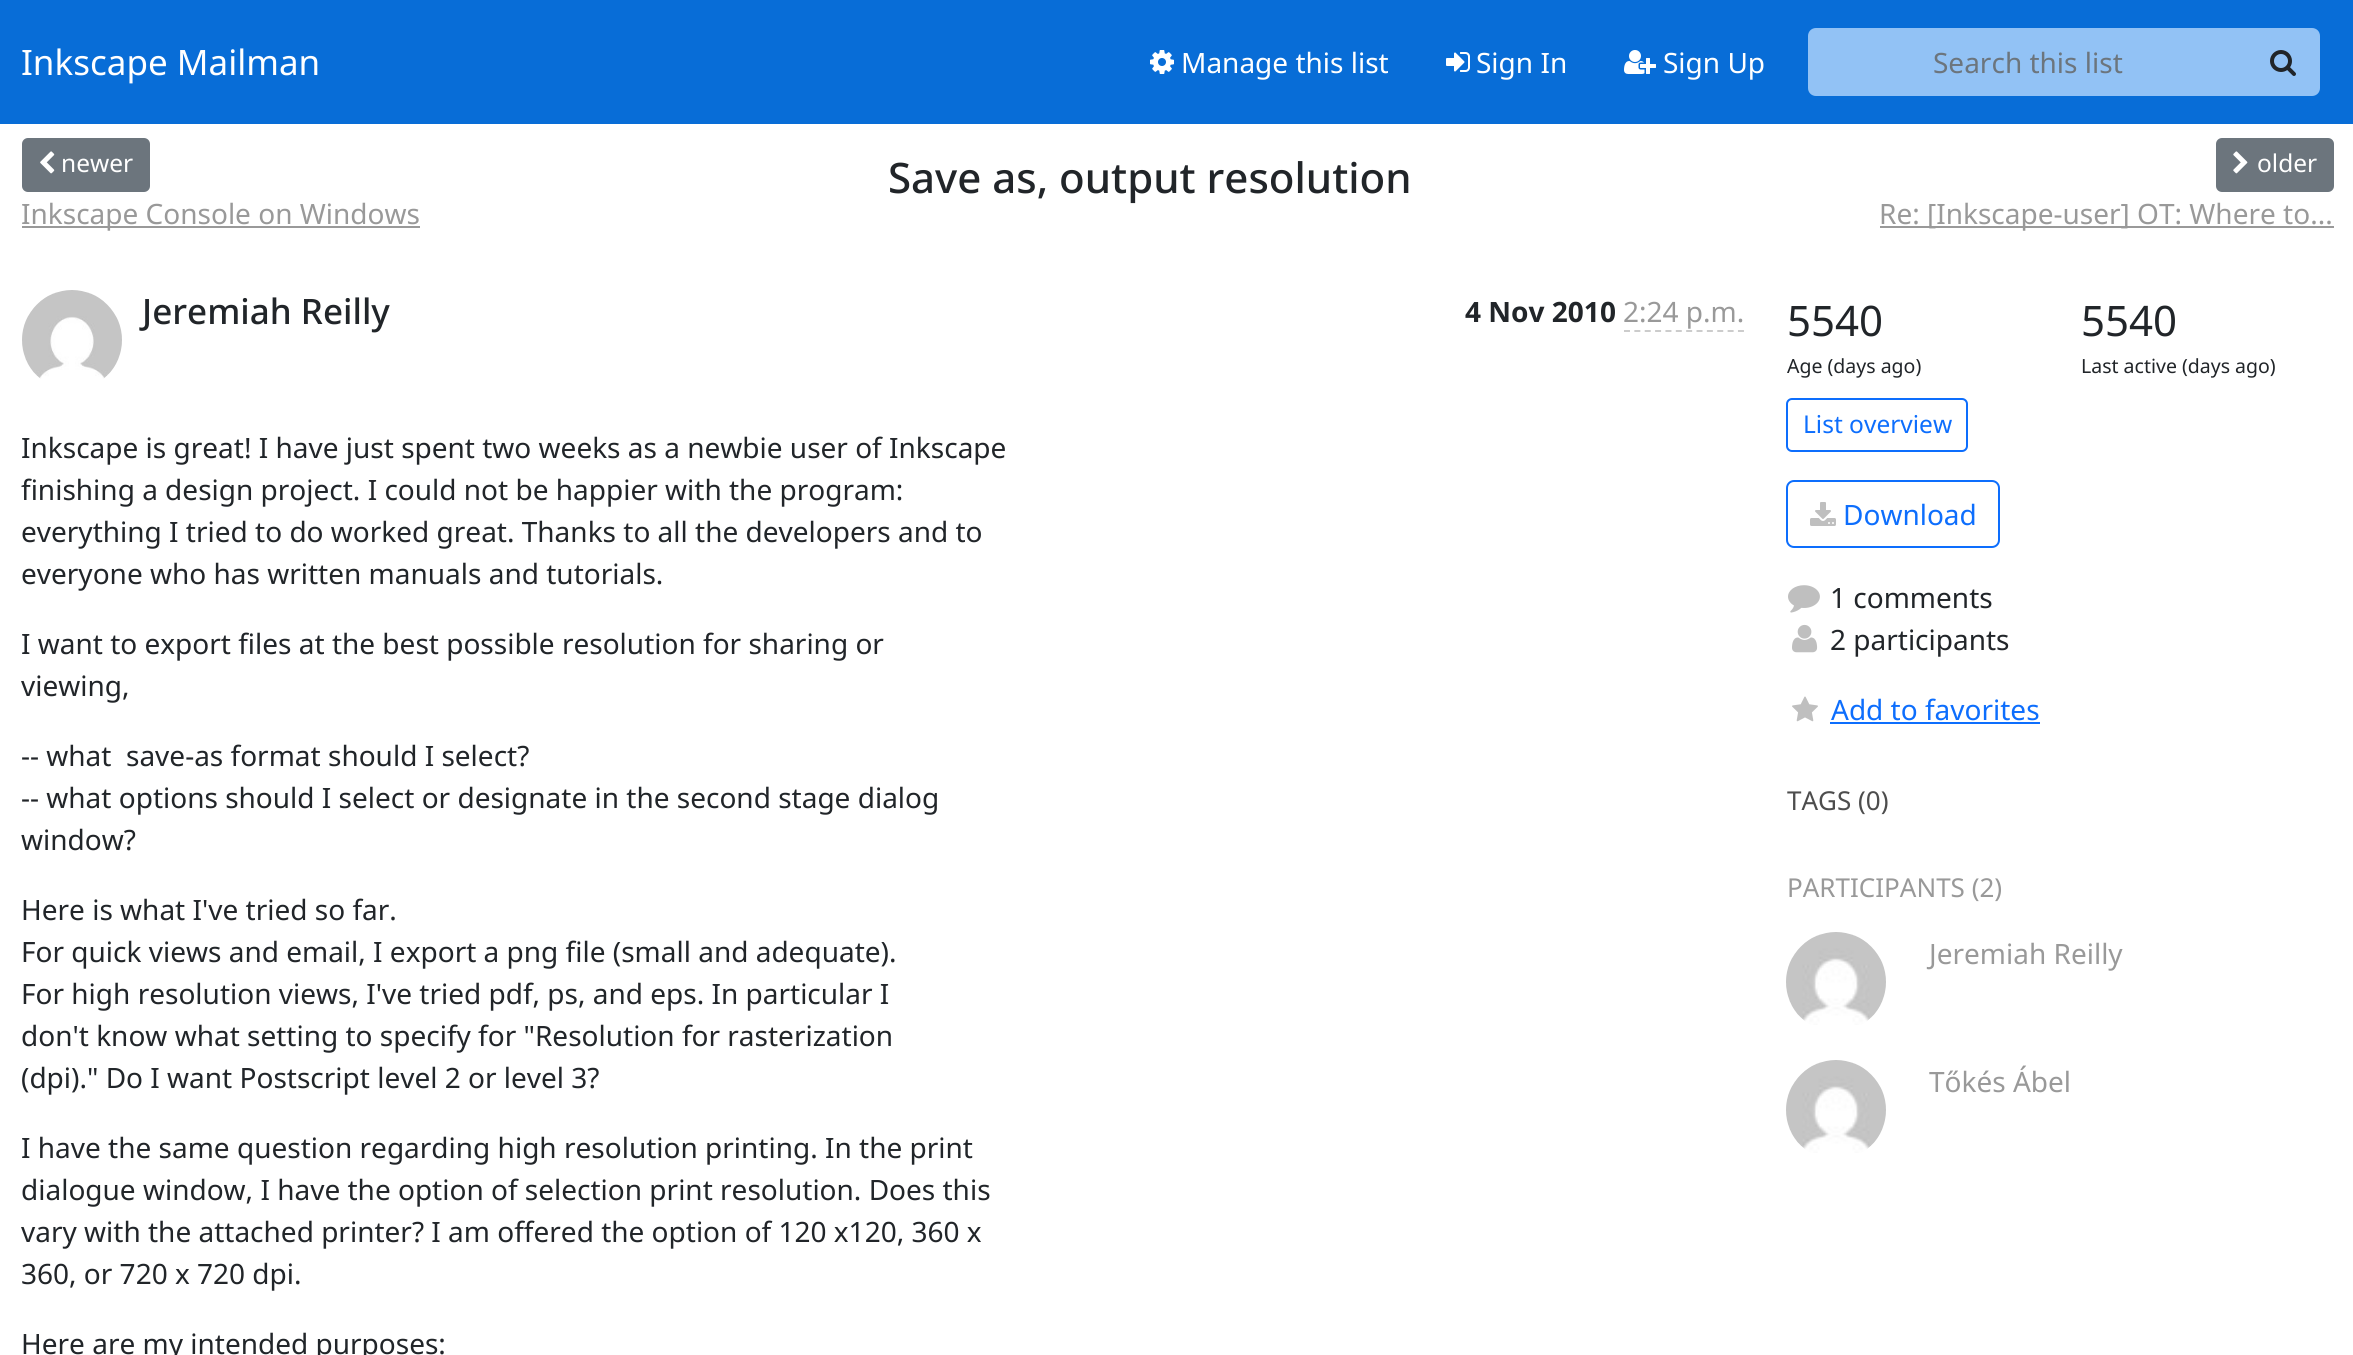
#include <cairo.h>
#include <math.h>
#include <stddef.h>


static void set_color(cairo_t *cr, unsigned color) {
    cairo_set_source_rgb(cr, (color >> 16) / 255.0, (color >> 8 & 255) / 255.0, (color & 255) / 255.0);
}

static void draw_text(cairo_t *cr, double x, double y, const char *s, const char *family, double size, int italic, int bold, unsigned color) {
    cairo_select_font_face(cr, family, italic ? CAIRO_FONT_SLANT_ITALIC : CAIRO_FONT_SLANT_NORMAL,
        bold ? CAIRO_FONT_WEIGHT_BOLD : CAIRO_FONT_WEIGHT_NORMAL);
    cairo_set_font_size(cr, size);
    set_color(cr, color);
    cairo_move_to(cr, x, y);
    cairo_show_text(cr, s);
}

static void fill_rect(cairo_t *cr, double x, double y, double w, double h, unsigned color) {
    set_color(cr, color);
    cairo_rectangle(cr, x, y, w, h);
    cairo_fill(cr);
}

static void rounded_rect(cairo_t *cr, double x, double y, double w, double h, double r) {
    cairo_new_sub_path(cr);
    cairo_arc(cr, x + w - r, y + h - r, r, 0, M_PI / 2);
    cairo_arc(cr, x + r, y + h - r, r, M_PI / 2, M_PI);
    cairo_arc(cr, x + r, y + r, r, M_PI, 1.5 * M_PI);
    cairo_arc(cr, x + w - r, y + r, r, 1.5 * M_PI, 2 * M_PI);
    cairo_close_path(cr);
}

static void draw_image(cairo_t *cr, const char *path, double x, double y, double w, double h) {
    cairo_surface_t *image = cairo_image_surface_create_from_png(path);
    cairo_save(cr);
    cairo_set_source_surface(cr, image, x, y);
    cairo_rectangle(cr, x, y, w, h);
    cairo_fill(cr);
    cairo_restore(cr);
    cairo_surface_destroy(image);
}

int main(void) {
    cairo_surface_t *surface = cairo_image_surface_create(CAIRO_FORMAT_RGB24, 2353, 1355);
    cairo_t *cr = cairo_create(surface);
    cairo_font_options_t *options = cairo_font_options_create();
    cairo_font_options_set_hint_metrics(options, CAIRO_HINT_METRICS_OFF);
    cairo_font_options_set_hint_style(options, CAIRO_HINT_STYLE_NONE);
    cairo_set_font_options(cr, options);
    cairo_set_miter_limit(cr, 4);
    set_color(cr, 0xFFFFFF);
    cairo_paint(cr);
    fill_rect(cr, 0, 0, 2353, 124, 0x086DD7);
    draw_text(cr, 21, 75, "Inkscape Mailman", "Noto Sans", 35, 0, 0, 0xFFFFFF);
    draw_image(cr, "assets/img1.png", 1150, 50, 24, 24);
    draw_text(cr, 1181, 73, "Manage this list", "Noto Sans", 28, 0, 0, 0xFFFFFF);
    draw_image(cr, "assets/img2.png", 1446, 52, 24, 20);
    draw_text(cr, 1476, 73, "Sign In", "Noto Sans", 28, 0, 0, 0xFFFFFF);
    draw_image(cr, "assets/img3.png", 1624, 50, 32, 24);
    draw_text(cr, 1663, 73, "Sign Up", "Noto Sans", 28, 0, 0, 0xFFFFFF);
    set_color(cr, 0x92C2F5);
    cairo_new_path(cr);
    cairo_move_to(cr, 1816, 28);
    cairo_line_to(cr, 2250, 28);
    cairo_line_to(cr, 2250, 96);
    cairo_line_to(cr, 1816, 96);
    cairo_curve_to(cr, 1811.5, 96, 1808, 92.5, 1808, 88);
    cairo_line_to(cr, 1808, 36);
    cairo_curve_to(cr, 1808, 31.5, 1811.5, 28, 1816, 28);
    cairo_close_path(cr);
    cairo_fill(cr);
    draw_text(cr, 1933, 73, "Search this list", "Noto Sans", 28, 0, 0, 0x6C757D);
    set_color(cr, 0x92C2F5);
    cairo_new_path(cr);
    cairo_move_to(cr, 2248, 28);
    cairo_line_to(cr, 2312, 28);
    cairo_curve_to(cr, 2316.5, 28, 2320, 31.5, 2320, 36);
    cairo_line_to(cr, 2320, 88);
    cairo_curve_to(cr, 2320, 92.5, 2316.5, 96, 2312, 96);
    cairo_line_to(cr, 2248, 96);
    cairo_close_path(cr);
    cairo_fill(cr);
    draw_image(cr, "assets/img4.png", 2270, 50, 26, 26);
    set_color(cr, 0x6C757D);
    rounded_rect(cr, 23, 139, 126, 52, 5);
    cairo_fill_preserve(cr);
    cairo_stroke(cr);
    draw_image(cr, "assets/img5.png", 40, 151, 15, 23);
    draw_text(cr, 61, 172, "newer", "Noto Sans", 24.5, 0, 0, 0xFFFFFF);
    fill_rect(cr, 22, 226, 398, 2, 0x999999);
    draw_text(cr, 21, 224, "Inkscape Console on Windows", "Noto Sans", 28, 0, 0, 0x999999);
    draw_text(cr, 888, 193, "Save as, output resolution", "Noto Sans Medium", 42, 0, 0, 0x212529);
    set_color(cr, 0x6C757D);
    rounded_rect(cr, 2217, 139, 116, 52, 5);
    cairo_fill_preserve(cr);
    cairo_stroke(cr);
    draw_image(cr, "assets/img6.png", 2233, 151, 15, 23);
    draw_text(cr, 2257, 172, "older", "Noto Sans", 24.5, 0, 0, 0xFFFFFF);
    fill_rect(cr, 1880, 226, 454, 2, 0x999999);
    draw_text(cr, 1879, 224, "Re: [Inkscape-user] OT: Where to...", "Noto Sans", 28, 0, 0, 0x999999);
    draw_image(cr, "assets/img7.png", 22, 290, 100, 89);
    draw_text(cr, 142, 324, "Jeremiah Reilly", "Noto Sans Medium", 35, 0, 0, 0x212529);
    draw_text(cr, 1465, 322, "4 Nov 2010", "Noto Sans", 28, 0, 1, 0x212529);
    draw_text(cr, 1623, 322, "2:24 p.m.", "Noto Sans", 28, 0, 0, 0x999999);
    cairo_new_path(cr);
    cairo_move_to(cr, 1624, 331);
    cairo_line_to(cr, 1744, 331);
    set_color(cr, 0xCCCCCC);
    cairo_set_dash(cr, (double[]){6, 4.36}, 2, 0);
    cairo_stroke(cr);
    draw_text(cr, 21, 458, "Inkscape is great! I have just spent two weeks as a newbie user of Inkscape", "Noto Sans", 28, 0, 0, 0x212529);
    draw_text(cr, 21, 500, "finishing a design project. I could not be happier with the program:", "Noto Sans", 28, 0, 0, 0x212529);
    draw_text(cr, 21, 542, "everything I tried to do worked great. Thanks to all the developers and to", "Noto Sans", 28, 0, 0, 0x212529);
    draw_text(cr, 21, 584, "everyone who has written manuals and tutorials.", "Noto Sans", 28, 0, 0, 0x212529);
    draw_text(cr, 21, 654, "I want to export files at the best possible resolution for sharing or", "Noto Sans", 28, 0, 0, 0x212529);
    draw_text(cr, 21, 696, "viewing,", "Noto Sans", 28, 0, 0, 0x212529);
    draw_text(cr, 21, 766, "-- what  save-as format should I select?", "Noto Sans", 28, 0, 0, 0x212529);
    draw_text(cr, 21, 808, "-- what options should I select or designate in the second stage dialog", "Noto Sans", 28, 0, 0, 0x212529);
    draw_text(cr, 21, 850, "window?", "Noto Sans", 28, 0, 0, 0x212529);
    draw_text(cr, 21, 920, "Here is what I've tried so far.", "Noto Sans", 28, 0, 0, 0x212529);
    draw_text(cr, 21, 962, "For quick views and email, I export a png file (small and adequate).", "Noto Sans", 28, 0, 0, 0x212529);
    draw_text(cr, 21, 1004, "For high resolution views, I've tried pdf, ps, and eps. In particular I", "Noto Sans", 28, 0, 0, 0x212529);
    draw_text(cr, 21, 1046, "don't know what setting to specify for \"Resolution for rasterization", "Noto Sans", 28, 0, 0, 0x212529);
    draw_text(cr, 21, 1088, "(dpi).\" Do I want Postscript level 2 or level 3?", "Noto Sans", 28, 0, 0, 0x212529);
    draw_text(cr, 21, 1158, "I have the same question regarding high resolution printing. In the print", "Noto Sans", 28, 0, 0, 0x212529);
    draw_text(cr, 21, 1200, "dialogue window, I have the option of selection print resolution. Does this", "Noto Sans", 28, 0, 0, 0x212529);
    draw_text(cr, 21, 1242, "vary with the attached printer? I am offered the option of 120 x120, 360 x", "Noto Sans", 28, 0, 0, 0x212529);
    draw_text(cr, 21, 1284, "360, or 720 x 720 dpi.", "Noto Sans", 28, 0, 0, 0x212529);
    draw_text(cr, 21, 1354, "Here are my intended purposes:", "Noto Sans", 28, 0, 0, 0x212529);
    draw_text(cr, 1787, 336, "5540", "Noto Sans", 42, 0, 0, 0x212529);
    draw_text(cr, 1787, 373, "Age (days ago)", "Noto Sans", 19.5, 0, 0, 0x212529);
    draw_text(cr, 2081, 336, "5540", "Noto Sans", 42, 0, 0, 0x212529);
    draw_text(cr, 2081, 373, "Last active (days ago)", "Noto Sans", 19.5, 0, 0, 0x212529);
    rounded_rect(cr, 1787, 399, 180, 52, 5);
    set_color(cr, 0x0D6EFD);
    cairo_set_dash(cr, NULL, 0, 0);
    cairo_stroke(cr);
    draw_text(cr, 1803, 433, "List overview", "Noto Sans", 24.5, 0, 0, 0x0D6EFD);
    rounded_rect(cr, 1787, 481, 212, 66, 7);
    cairo_stroke(cr);
    draw_image(cr, "assets/img8.png", 1810, 502, 26, 24);
    draw_text(cr, 1843, 525, "Download", "Noto Sans", 28, 0, 0, 0x0D6EFD);
    draw_image(cr, "assets/img9.png", 1788, 585, 32, 28);
    draw_text(cr, 1830, 608, "1 comments", "Noto Sans", 28, 0, 0, 0x212529);
    draw_image(cr, "assets/img10.png", 1792, 624, 26, 29);
    draw_text(cr, 1830, 650, "2 participants", "Noto Sans", 28, 0, 0, 0x212529);
    draw_image(cr, "assets/img11.png", 1792, 696, 26, 26);
    draw_text(cr, 1831, 720, "Add to favorites", "Noto Sans", 28, 0, 0, 0x0D6EFD);
    fill_rect(cr, 1830, 722, 210, 2, 0x0D6EFD);
    draw_text(cr, 1787, 810, "TAGS (0)", "Noto Sans", 26, 0, 0, 0x4D4D4D);
    draw_text(cr, 1787, 897, "PARTICIPANTS (2)", "Noto Sans", 26, 0, 0, 0x999999);
    draw_image(cr, "assets/img12.png", 1786, 932, 100, 93);
    draw_text(cr, 1929, 964, "Jeremiah Reilly", "Noto Sans", 28, 0, 0, 0x999999);
    draw_image(cr, "assets/img13.png", 1786, 1060, 100, 93);
    draw_text(cr, 1929, 1092, "Tőkés Ábel", "Noto Sans", 28, 0, 0, 0x999999);
    cairo_surface_write_to_png(surface, "output.png");
    cairo_font_options_destroy(options);
    cairo_destroy(cr);
    cairo_surface_destroy(surface);
    return 0;
}
